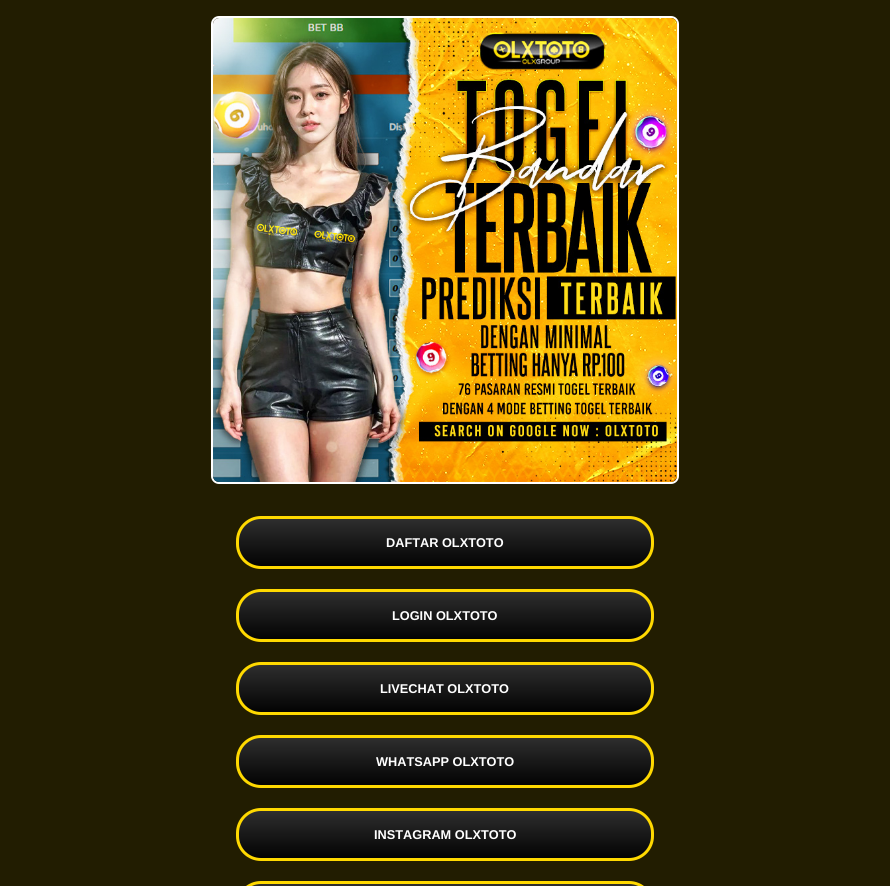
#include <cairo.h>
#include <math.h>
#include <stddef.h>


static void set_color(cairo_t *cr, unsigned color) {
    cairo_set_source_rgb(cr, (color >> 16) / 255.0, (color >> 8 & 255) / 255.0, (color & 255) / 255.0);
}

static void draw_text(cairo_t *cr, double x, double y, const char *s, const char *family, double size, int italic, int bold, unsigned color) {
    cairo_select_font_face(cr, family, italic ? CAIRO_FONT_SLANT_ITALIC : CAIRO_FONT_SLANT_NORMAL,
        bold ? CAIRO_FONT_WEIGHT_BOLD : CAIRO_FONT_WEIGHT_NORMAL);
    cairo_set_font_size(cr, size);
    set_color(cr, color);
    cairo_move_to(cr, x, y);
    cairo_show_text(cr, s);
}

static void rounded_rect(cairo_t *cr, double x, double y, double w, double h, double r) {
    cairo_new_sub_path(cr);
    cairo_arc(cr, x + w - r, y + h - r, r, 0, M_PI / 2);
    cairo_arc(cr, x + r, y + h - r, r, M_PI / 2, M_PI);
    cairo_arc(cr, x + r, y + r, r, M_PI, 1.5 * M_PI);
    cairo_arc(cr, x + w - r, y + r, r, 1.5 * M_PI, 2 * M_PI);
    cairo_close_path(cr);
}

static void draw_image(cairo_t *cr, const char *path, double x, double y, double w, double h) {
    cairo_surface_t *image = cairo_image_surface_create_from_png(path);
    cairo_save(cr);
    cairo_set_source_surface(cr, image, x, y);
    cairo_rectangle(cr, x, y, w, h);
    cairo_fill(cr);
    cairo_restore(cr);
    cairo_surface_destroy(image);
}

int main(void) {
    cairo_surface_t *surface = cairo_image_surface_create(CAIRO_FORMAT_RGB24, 890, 886);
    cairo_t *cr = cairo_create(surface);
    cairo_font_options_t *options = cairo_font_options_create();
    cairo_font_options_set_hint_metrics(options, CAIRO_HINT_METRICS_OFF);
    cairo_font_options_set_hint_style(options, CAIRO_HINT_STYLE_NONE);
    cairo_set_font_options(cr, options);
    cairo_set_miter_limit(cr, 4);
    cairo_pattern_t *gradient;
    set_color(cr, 0x221D01);
    cairo_paint(cr);
    rounded_rect(cr, 212, 17, 466, 466, 7);
    set_color(cr, 0xFFFFFF);
    cairo_stroke(cr);
    draw_image(cr, "assets/img1.png", 213, 18, 464, 464);
    set_color(cr, 0xFFD900);
    rounded_rect(cr, 236, 516, 418, 53, 25);
    cairo_fill(cr);
    gradient = cairo_pattern_create_linear(445, 516, 445, 569);
    cairo_pattern_add_color_stop_rgba(gradient, 0, 0.192, 0.192, 0.192, 1);
    cairo_pattern_add_color_stop_rgba(gradient, 1, 0, 0, 0, 1);
    cairo_set_source(cr, gradient);
    cairo_pattern_destroy(gradient);
    rounded_rect(cr, 239, 519, 412, 47, 22);
    cairo_fill(cr);
    draw_text(cr, 386, 547, "DAFTAR OLXTOTO", "Liberation Sans", 12.75, 0, 1, 0xFFFFFF);
    set_color(cr, 0xFFD900);
    rounded_rect(cr, 236, 589, 418, 53, 25);
    cairo_fill(cr);
    gradient = cairo_pattern_create_linear(445, 589, 445, 642);
    cairo_pattern_add_color_stop_rgba(gradient, 0, 0.192, 0.192, 0.192, 1);
    cairo_pattern_add_color_stop_rgba(gradient, 1, 0, 0, 0, 1);
    cairo_set_source(cr, gradient);
    cairo_pattern_destroy(gradient);
    rounded_rect(cr, 239, 592, 412, 47, 22);
    cairo_fill(cr);
    draw_text(cr, 392, 620, "LOGIN OLXTOTO", "Liberation Sans", 12.75, 0, 1, 0xFFFFFF);
    set_color(cr, 0xFFD900);
    rounded_rect(cr, 236, 662, 418, 53, 25);
    cairo_fill(cr);
    gradient = cairo_pattern_create_linear(445, 662, 445, 715);
    cairo_pattern_add_color_stop_rgba(gradient, 0, 0.192, 0.192, 0.192, 1);
    cairo_pattern_add_color_stop_rgba(gradient, 1, 0, 0, 0, 1);
    cairo_set_source(cr, gradient);
    cairo_pattern_destroy(gradient);
    rounded_rect(cr, 239, 665, 412, 47, 22);
    cairo_fill(cr);
    draw_text(cr, 380, 693, "LIVECHAT OLXTOTO", "Liberation Sans", 12.75, 0, 1, 0xFFFFFF);
    set_color(cr, 0xFFD900);
    rounded_rect(cr, 236, 735, 418, 53, 25);
    cairo_fill(cr);
    gradient = cairo_pattern_create_linear(445, 735, 445, 788);
    cairo_pattern_add_color_stop_rgba(gradient, 0, 0.192, 0.192, 0.192, 1);
    cairo_pattern_add_color_stop_rgba(gradient, 1, 0, 0, 0, 1);
    cairo_set_source(cr, gradient);
    cairo_pattern_destroy(gradient);
    rounded_rect(cr, 239, 738, 412, 47, 22);
    cairo_fill(cr);
    draw_text(cr, 376, 766, "WHATSAPP OLXTOTO", "Liberation Sans", 12.75, 0, 1, 0xFFFFFF);
    set_color(cr, 0xFFD900);
    rounded_rect(cr, 236, 808, 418, 53, 25);
    cairo_fill(cr);
    gradient = cairo_pattern_create_linear(445, 808, 445, 861);
    cairo_pattern_add_color_stop_rgba(gradient, 0, 0.192, 0.192, 0.192, 1);
    cairo_pattern_add_color_stop_rgba(gradient, 1, 0, 0, 0, 1);
    cairo_set_source(cr, gradient);
    cairo_pattern_destroy(gradient);
    rounded_rect(cr, 239, 811, 412, 47, 22);
    cairo_fill(cr);
    draw_text(cr, 374, 839, "INSTAGRAM OLXTOTO", "Liberation Sans", 12.75, 0, 1, 0xFFFFFF);
    set_color(cr, 0xFFD900);
    rounded_rect(cr, 236, 881, 418, 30, 25);
    cairo_fill(cr);
    gradient = cairo_pattern_create_linear(445, 881, 445, 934);
    cairo_pattern_add_color_stop_rgba(gradient, 0, 0.192, 0.192, 0.192, 1);
    cairo_pattern_add_color_stop_rgba(gradient, 1, 0, 0, 0, 1);
    cairo_set_source(cr, gradient);
    cairo_pattern_destroy(gradient);
    rounded_rect(cr, 239, 884, 412, 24, 22);
    cairo_fill(cr);
    cairo_surface_write_to_png(surface, "output.png");
    cairo_font_options_destroy(options);
    cairo_destroy(cr);
    cairo_surface_destroy(surface);
    return 0;
}
